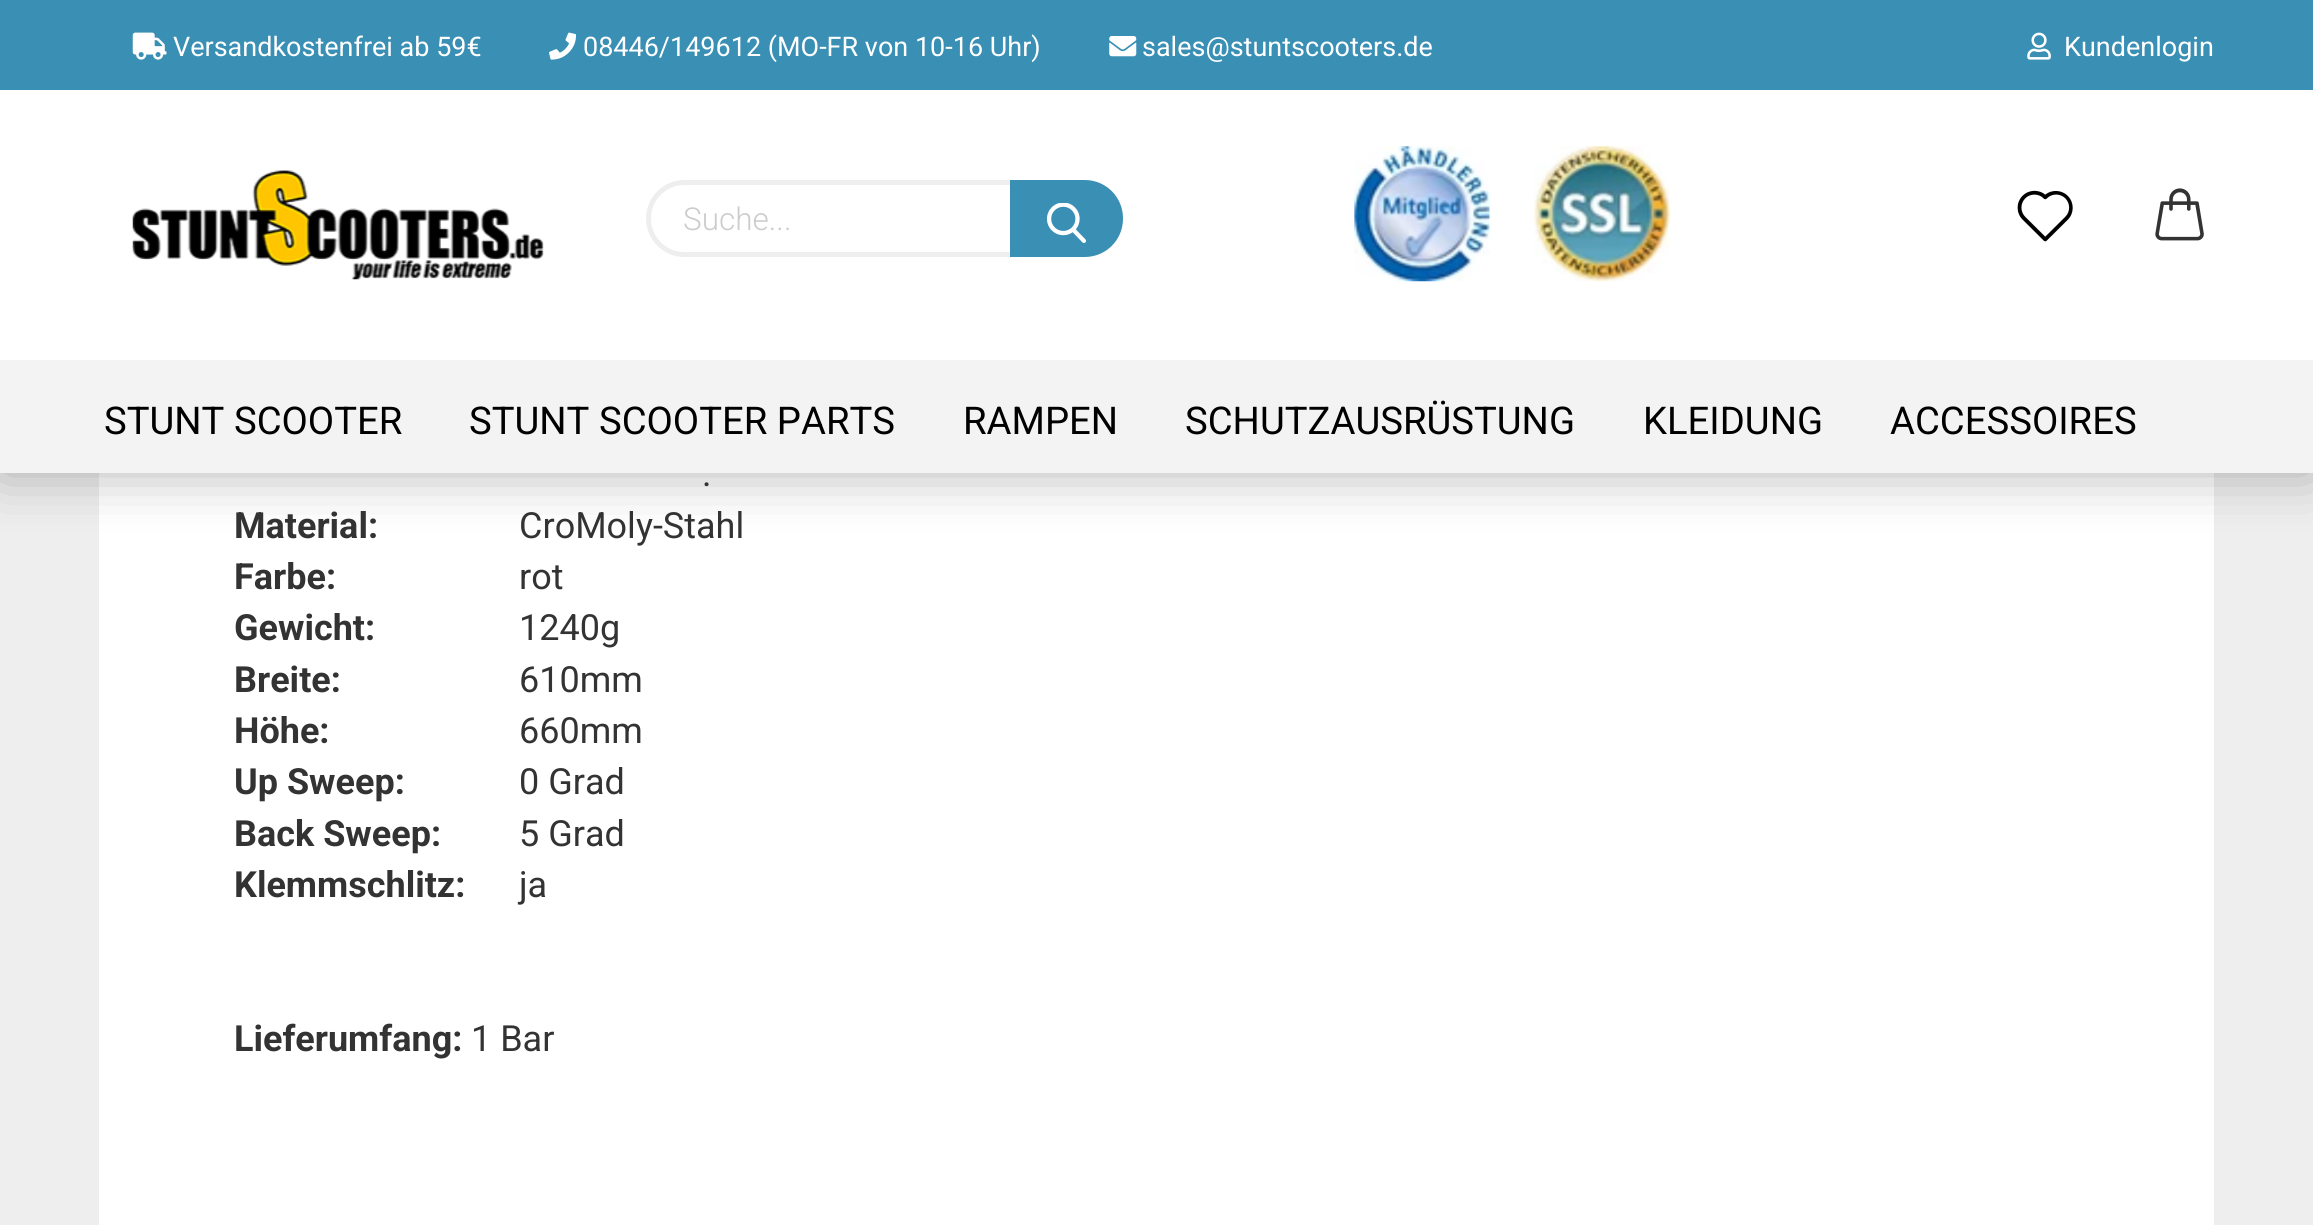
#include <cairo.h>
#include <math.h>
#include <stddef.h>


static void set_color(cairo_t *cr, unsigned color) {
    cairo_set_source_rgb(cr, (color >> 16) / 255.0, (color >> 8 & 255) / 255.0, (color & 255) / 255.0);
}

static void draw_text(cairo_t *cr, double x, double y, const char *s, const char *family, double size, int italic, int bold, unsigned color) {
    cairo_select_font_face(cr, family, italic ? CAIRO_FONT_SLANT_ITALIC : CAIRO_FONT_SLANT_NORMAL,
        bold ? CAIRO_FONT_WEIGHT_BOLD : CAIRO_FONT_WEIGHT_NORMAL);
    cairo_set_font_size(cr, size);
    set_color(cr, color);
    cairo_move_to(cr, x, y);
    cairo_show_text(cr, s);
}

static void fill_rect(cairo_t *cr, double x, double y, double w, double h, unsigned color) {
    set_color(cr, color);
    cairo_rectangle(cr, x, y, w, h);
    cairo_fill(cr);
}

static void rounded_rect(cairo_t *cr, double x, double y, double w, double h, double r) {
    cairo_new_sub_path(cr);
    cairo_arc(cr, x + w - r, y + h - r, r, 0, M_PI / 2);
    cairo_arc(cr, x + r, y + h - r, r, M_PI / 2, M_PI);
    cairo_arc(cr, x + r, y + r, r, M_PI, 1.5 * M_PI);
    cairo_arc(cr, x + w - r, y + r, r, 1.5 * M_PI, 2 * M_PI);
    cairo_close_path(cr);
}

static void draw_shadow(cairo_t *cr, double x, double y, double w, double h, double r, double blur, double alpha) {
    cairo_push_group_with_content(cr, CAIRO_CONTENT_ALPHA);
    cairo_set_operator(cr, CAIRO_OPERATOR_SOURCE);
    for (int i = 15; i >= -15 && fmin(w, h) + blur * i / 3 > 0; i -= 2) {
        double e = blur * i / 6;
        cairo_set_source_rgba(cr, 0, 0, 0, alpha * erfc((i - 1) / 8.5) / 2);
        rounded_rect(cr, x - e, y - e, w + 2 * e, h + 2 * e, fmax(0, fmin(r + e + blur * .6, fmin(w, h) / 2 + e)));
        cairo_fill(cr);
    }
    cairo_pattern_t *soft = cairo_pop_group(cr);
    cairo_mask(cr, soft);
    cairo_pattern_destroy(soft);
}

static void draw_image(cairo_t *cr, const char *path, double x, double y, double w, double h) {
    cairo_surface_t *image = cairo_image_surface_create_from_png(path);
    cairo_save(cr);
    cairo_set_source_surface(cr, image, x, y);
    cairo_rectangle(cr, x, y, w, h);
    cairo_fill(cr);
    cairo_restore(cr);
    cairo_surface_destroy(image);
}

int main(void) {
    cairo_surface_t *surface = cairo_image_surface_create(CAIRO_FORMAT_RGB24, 2313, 1225);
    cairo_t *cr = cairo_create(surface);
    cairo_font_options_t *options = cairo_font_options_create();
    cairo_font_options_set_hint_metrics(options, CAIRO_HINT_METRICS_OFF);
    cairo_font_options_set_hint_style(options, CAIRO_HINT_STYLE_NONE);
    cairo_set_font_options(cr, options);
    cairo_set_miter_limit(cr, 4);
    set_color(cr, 0xEEEEEE);
    cairo_paint(cr);
    fill_rect(cr, 99, 473, 2115, 752, 0xFFFFFF);
    set_color(cr, 0x000000);
    draw_shadow(cr, 0, 0, 2313, 473, 0, 28, 0.3);
    fill_rect(cr, 0, 90, 2313, 270, 0xFFFFFF);
    fill_rect(cr, 0, 0, 2313, 90, 0x398FB4);
    draw_image(cr, "assets/img1.png", 132, 32, 35, 28);
    draw_text(cr, 173, 56, "Versandkostenfrei ab 59€", "Roboto", 27, 0, 0, 0xFFFFFF);
    draw_image(cr, "assets/img2.png", 549, 32, 28, 28);
    draw_text(cr, 583, 56, "08446/149612 (MO-FR von 10-16 Uhr)", "Roboto", 27, 0, 0, 0xFFFFFF);
    draw_image(cr, "assets/img3.png", 1109, 36, 28, 21);
    draw_text(cr, 1142, 56, "sales@stuntscooters.de", "Roboto", 27, 0, 0, 0xFFFFFF);
    draw_image(cr, "assets/img4.png", 2027, 32, 24, 28);
    draw_text(cr, 2064, 56, "Kundenlogin", "Roboto", 27, 0, 0, 0xFFFFFF);
    draw_image(cr, "assets/img5.png", 132, 170, 412, 110);
    rounded_rect(cr, 648.5, 182.5, 472, 72, 36);
    set_color(cr, 0xEEEEEE);
    cairo_set_line_width(cr, 5);
    cairo_stroke(cr);
    draw_text(cr, 683, 230, "Suche...", "Roboto Light", 31.5, 0, 0, 0xCCCCCC);
    set_color(cr, 0x398FB4);
    cairo_new_path(cr);
    cairo_move_to(cr, 1010, 180);
    cairo_line_to(cr, 1084.5, 180);
    cairo_curve_to(cr, 1106, 180, 1123, 197, 1123, 218.5);
    cairo_curve_to(cr, 1123, 240, 1106, 257, 1084.5, 257);
    cairo_line_to(cr, 1010, 257);
    cairo_close_path(cr);
    cairo_fill(cr);
    draw_image(cr, "assets/img6.png", 1046, 203, 40, 40);
    draw_image(cr, "assets/img7.png", 1354, 146, 137, 136);
    draw_image(cr, "assets/img8.png", 1534, 146, 137, 136);
    draw_image(cr, "assets/img9.png", 2017, 190, 56, 52);
    draw_image(cr, "assets/img10.png", 2155, 188, 49, 53);
    fill_rect(cr, 0, 360, 2313, 113, 0xF3F3F3);
    draw_text(cr, 104, 434, "STUNT SCOOTER", "Roboto", 38.25, 0, 0, 0x000000);
    draw_text(cr, 469, 434, "STUNT SCOOTER PARTS", "Roboto", 38.25, 0, 0, 0x000000);
    draw_text(cr, 963, 434, "RAMPEN", "Roboto", 38.25, 0, 0, 0x000000);
    draw_text(cr, 1185, 434, "SCHUTZAUSRÜSTUNG", "Roboto", 38.25, 0, 0, 0x000000);
    draw_text(cr, 1643, 434, "KLEIDUNG", "Roboto", 38.25, 0, 0, 0x000000);
    draw_text(cr, 1890, 434, "ACCESSOIRES", "Roboto", 38.25, 0, 0, 0x000000);
    draw_text(cr, 234, 538, "Material:", "Roboto", 36, 0, 1, 0x333333);
    draw_text(cr, 234, 589, "Farbe:", "Roboto", 36, 0, 1, 0x333333);
    draw_text(cr, 234, 640, "Gewicht:", "Roboto", 36, 0, 1, 0x333333);
    draw_text(cr, 234, 692, "Breite:", "Roboto", 36, 0, 1, 0x333333);
    draw_text(cr, 234, 743, "Höhe:", "Roboto", 36, 0, 1, 0x333333);
    draw_text(cr, 234, 794, "Up Sweep:", "Roboto", 36, 0, 1, 0x333333);
    draw_text(cr, 234, 846, "Back Sweep:", "Roboto", 36, 0, 1, 0x333333);
    draw_text(cr, 234, 897, "Klemmschlitz:", "Roboto", 36, 0, 1, 0x333333);
    draw_text(cr, 702, 486, ".", "Roboto", 36, 0, 0, 0x333333);
    draw_text(cr, 519, 538, "CroMoly-Stahl", "Roboto", 36, 0, 0, 0x333333);
    draw_text(cr, 519, 589, "rot", "Roboto", 36, 0, 0, 0x333333);
    draw_text(cr, 519, 640, "1240g", "Roboto", 36, 0, 0, 0x333333);
    draw_text(cr, 519, 692, "610mm", "Roboto", 36, 0, 0, 0x333333);
    draw_text(cr, 519, 743, "660mm", "Roboto", 36, 0, 0, 0x333333);
    draw_text(cr, 519, 794, "0 Grad", "Roboto", 36, 0, 0, 0x333333);
    draw_text(cr, 519, 846, "5 Grad", "Roboto", 36, 0, 0, 0x333333);
    draw_text(cr, 519, 897, "ja", "Roboto", 36, 0, 0, 0x333333);
    draw_text(cr, 234, 1051, "Lieferumfang:", "Roboto", 36, 0, 1, 0x333333);
    draw_text(cr, 471, 1051, "1 Bar", "Roboto", 36, 0, 0, 0x333333);
    cairo_surface_write_to_png(surface, "output.png");
    cairo_font_options_destroy(options);
    cairo_destroy(cr);
    cairo_surface_destroy(surface);
    return 0;
}
